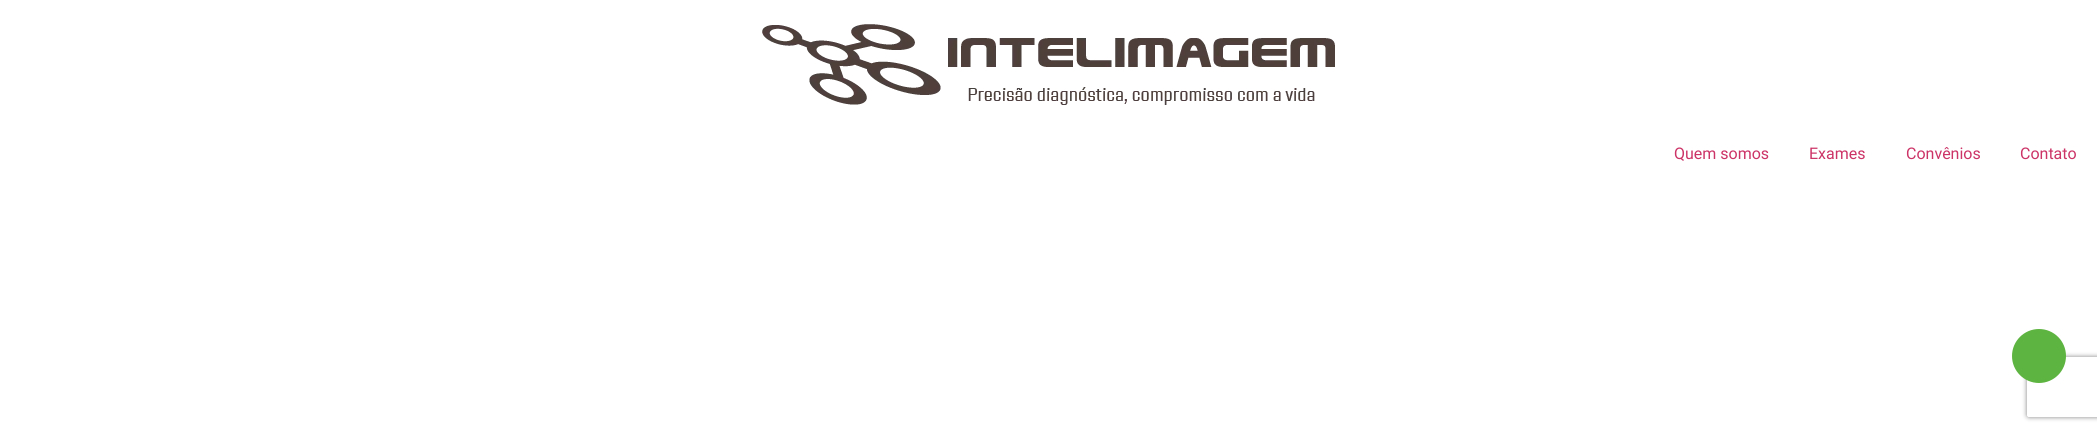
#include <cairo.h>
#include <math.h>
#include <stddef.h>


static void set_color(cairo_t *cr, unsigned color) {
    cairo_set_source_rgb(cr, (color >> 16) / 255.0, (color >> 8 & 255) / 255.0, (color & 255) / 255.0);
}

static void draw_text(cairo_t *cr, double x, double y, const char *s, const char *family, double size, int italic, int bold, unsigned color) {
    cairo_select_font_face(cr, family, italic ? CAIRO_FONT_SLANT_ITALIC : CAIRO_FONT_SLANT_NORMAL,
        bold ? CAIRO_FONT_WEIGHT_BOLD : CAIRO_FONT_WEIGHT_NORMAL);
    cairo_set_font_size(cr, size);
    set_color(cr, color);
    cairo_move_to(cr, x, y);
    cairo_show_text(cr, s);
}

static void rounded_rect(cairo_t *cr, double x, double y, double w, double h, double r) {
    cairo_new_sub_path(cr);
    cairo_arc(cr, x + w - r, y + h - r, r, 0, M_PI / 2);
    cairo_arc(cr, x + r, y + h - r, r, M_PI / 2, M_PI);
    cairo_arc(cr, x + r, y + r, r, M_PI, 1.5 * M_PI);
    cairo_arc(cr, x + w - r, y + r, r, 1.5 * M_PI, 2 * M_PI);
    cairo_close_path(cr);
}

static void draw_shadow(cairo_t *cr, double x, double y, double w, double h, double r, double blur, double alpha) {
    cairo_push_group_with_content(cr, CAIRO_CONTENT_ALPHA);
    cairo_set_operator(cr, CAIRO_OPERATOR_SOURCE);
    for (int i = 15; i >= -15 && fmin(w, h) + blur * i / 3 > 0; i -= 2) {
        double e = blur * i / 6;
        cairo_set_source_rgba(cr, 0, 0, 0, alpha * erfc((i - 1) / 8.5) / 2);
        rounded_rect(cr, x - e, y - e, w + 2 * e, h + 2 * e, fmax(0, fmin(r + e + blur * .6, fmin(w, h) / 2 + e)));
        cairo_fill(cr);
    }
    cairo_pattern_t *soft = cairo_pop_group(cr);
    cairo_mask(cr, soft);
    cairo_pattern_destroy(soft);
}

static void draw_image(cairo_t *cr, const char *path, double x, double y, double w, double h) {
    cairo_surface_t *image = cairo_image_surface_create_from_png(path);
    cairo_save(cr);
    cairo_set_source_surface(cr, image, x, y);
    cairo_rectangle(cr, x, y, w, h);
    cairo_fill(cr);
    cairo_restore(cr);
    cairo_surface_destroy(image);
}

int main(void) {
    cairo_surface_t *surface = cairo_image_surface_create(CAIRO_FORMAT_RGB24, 2097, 431);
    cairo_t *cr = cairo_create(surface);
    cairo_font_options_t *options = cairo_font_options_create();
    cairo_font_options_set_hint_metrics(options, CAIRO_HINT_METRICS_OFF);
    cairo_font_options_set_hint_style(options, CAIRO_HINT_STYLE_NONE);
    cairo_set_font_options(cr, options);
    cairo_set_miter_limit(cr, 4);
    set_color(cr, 0xFFFFFF);
    cairo_paint(cr);
    draw_image(cr, "assets/img1.png", 762, 24, 573, 81);
    draw_text(cr, 1674, 159, "Quem somos", "Roboto", 16, 0, 0, 0xCC3366);
    draw_text(cr, 1809, 159, "Exames", "Roboto", 16, 0, 0, 0xCC3366);
    draw_text(cr, 1906, 159, "Convênios", "Roboto", 16, 0, 0, 0xCC3366);
    draw_text(cr, 2020, 159, "Contato", "Roboto", 16, 0, 0, 0xCC3366);
    cairo_save(cr);
    cairo_set_fill_rule(cr, CAIRO_FILL_RULE_EVEN_ODD);
    cairo_new_path(cr);
    cairo_move_to(cr, 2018, 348);
    cairo_line_to(cr, 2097, 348);
    cairo_line_to(cr, 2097, 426);
    cairo_line_to(cr, 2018, 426);
    cairo_close_path(cr);
    cairo_move_to(cr, 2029, 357);
    cairo_line_to(cr, 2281, 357);
    cairo_curve_to(cr, 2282, 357, 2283, 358, 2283, 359);
    cairo_line_to(cr, 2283, 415);
    cairo_curve_to(cr, 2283, 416, 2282, 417, 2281, 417);
    cairo_line_to(cr, 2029, 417);
    cairo_curve_to(cr, 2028, 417, 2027, 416, 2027, 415);
    cairo_line_to(cr, 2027, 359);
    cairo_curve_to(cr, 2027, 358, 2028, 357, 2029, 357);
    cairo_close_path(cr);
    cairo_clip(cr);
    set_color(cr, 0x808080);
    draw_shadow(cr, 2027, 357, 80, 60, 2, 2.5, 1);
    cairo_restore(cr);
    set_color(cr, 0x5EB440);
    cairo_arc(cr, 2039, 356, 27, 0, 2 * M_PI);
    cairo_fill(cr);
    cairo_surface_write_to_png(surface, "output.png");
    cairo_font_options_destroy(options);
    cairo_destroy(cr);
    cairo_surface_destroy(surface);
    return 0;
}
